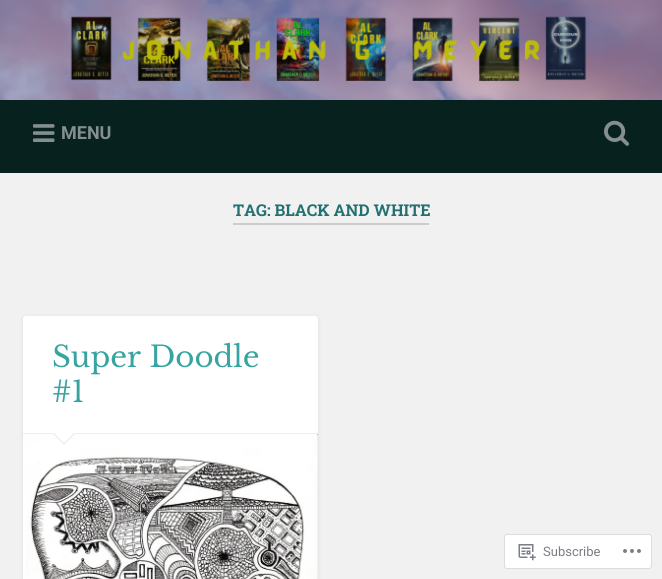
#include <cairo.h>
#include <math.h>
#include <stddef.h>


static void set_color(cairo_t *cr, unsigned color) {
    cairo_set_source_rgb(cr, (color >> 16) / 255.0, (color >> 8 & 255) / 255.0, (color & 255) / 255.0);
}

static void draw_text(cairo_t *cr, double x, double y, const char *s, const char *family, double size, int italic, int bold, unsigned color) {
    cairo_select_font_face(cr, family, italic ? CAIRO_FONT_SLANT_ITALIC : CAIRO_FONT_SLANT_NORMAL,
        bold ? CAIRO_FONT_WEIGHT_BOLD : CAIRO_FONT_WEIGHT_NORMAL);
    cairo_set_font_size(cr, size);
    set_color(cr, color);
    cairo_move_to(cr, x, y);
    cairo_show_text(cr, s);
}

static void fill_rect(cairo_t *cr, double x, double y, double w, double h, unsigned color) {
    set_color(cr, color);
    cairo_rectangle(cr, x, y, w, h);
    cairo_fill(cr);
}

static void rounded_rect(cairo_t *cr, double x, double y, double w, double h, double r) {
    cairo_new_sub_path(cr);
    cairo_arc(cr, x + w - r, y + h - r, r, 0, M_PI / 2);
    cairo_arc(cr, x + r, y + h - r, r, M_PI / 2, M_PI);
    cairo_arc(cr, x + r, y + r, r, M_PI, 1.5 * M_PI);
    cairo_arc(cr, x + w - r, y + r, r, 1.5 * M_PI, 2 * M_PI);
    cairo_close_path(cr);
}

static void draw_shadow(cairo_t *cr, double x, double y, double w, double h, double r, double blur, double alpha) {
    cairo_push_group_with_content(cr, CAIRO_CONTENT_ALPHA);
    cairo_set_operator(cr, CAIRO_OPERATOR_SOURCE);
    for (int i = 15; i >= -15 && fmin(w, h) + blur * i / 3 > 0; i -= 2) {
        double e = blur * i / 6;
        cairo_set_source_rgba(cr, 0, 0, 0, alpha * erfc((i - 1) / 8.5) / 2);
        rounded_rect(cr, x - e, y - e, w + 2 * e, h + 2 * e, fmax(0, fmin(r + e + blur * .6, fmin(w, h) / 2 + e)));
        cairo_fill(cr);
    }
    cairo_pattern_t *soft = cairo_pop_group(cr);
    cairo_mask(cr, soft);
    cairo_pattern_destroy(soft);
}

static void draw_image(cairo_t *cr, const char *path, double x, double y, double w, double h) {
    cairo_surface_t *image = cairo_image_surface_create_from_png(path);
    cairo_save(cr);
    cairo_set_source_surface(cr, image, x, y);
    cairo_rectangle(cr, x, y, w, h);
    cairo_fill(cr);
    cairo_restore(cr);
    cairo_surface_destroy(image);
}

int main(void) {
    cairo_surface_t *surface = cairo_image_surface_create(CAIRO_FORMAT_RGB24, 662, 579);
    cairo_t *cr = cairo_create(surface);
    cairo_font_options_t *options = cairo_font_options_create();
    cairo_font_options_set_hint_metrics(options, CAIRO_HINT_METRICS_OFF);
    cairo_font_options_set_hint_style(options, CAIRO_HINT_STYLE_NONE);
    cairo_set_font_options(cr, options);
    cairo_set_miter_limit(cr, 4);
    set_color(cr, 0xF1F1F2);
    cairo_paint(cr);
    draw_image(cr, "assets/img1.png", 0, 0, 662, 100);
    fill_rect(cr, 0, 100, 662, 73, 0x07211F);
    draw_image(cr, "assets/img2.png", 33, 124, 22, 18);
    draw_text(cr, 61, 139, "MENU", "Roboto", 18, 0, 1, 0x83908F);
    draw_image(cr, "assets/img3.png", 604, 120, 25, 26);
    fill_rect(cr, 233, 223, 196, 2, 0xCCCCCC);
    draw_text(cr, 233, 216, "TAG: BLACK AND WHITE", "Roboto Slab", 16.25, 0, 1, 0x227170);
    set_color(cr, 0x000000);
    draw_shadow(cr, 23, 317, 295, 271, 3, 2, 0.1);
    set_color(cr, 0xFFFFFF);
    rounded_rect(cr, 23, 316, 295, 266, 3);
    cairo_fill(cr);
    fill_rect(cr, 23, 433, 295, 1, 0xEEEEEE);
    draw_text(cr, 52, 367, "Super Doodle", "Libre Baskerville", 29.25, 0, 0, 0x36A4A0);
    draw_text(cr, 52, 402, "#1", "Libre Baskerville", 29.25, 0, 0, 0x36A4A0);
    draw_image(cr, "assets/img4.png", 25, 434, 293, 145);
    set_color(cr, 0xEEEEEE);
    cairo_new_path(cr);
    cairo_move_to(cr, 52, 433);
    cairo_line_to(cr, 76, 433);
    cairo_line_to(cr, 64, 445);
    cairo_close_path(cr);
    cairo_fill(cr);
    set_color(cr, 0xFFFFFF);
    cairo_new_path(cr);
    cairo_move_to(cr, 53, 432);
    cairo_line_to(cr, 75, 432);
    cairo_line_to(cr, 64, 443);
    cairo_close_path(cr);
    cairo_fill(cr);
    rounded_rect(cr, 504.5, 534.5, 147, 34, 2.5);
    cairo_fill_preserve(cr);
    set_color(cr, 0xDCDCDE);
    cairo_set_line_width(cr, 1);
    cairo_stroke(cr);
    draw_image(cr, "assets/img5.png", 518, 544, 18, 17);
    draw_text(cr, 543, 556, "Subscribe", "Roboto", 13, 0, 0, 0x7A7E84);
    draw_image(cr, "assets/img6.png", 623, 549, 18, 4);
    cairo_surface_write_to_png(surface, "output.png");
    cairo_font_options_destroy(options);
    cairo_destroy(cr);
    cairo_surface_destroy(surface);
    return 0;
}
